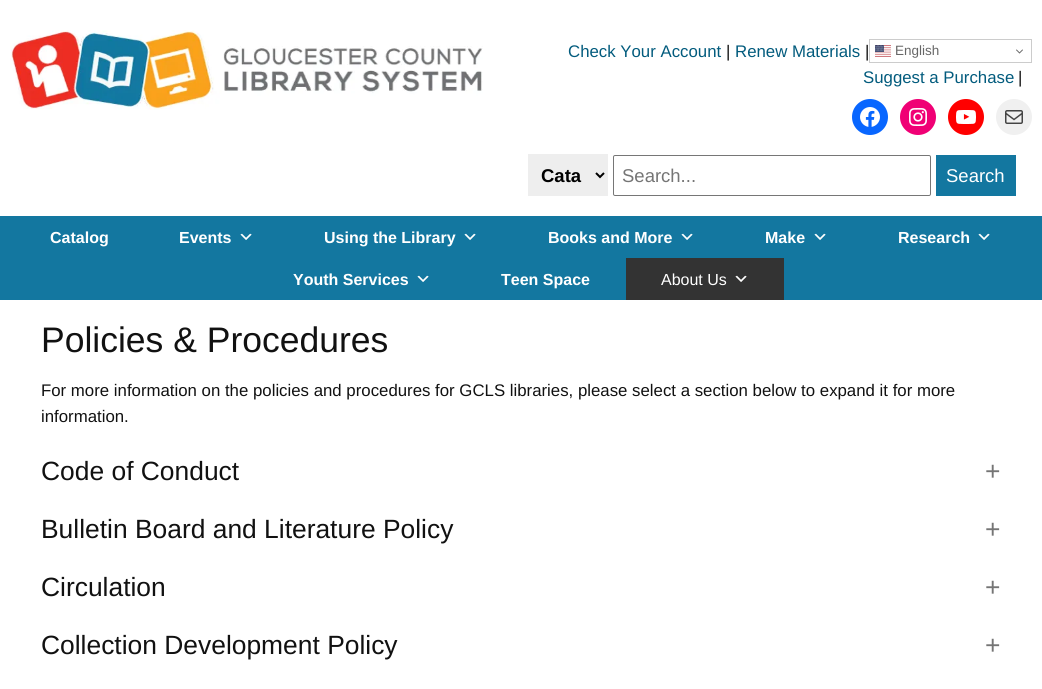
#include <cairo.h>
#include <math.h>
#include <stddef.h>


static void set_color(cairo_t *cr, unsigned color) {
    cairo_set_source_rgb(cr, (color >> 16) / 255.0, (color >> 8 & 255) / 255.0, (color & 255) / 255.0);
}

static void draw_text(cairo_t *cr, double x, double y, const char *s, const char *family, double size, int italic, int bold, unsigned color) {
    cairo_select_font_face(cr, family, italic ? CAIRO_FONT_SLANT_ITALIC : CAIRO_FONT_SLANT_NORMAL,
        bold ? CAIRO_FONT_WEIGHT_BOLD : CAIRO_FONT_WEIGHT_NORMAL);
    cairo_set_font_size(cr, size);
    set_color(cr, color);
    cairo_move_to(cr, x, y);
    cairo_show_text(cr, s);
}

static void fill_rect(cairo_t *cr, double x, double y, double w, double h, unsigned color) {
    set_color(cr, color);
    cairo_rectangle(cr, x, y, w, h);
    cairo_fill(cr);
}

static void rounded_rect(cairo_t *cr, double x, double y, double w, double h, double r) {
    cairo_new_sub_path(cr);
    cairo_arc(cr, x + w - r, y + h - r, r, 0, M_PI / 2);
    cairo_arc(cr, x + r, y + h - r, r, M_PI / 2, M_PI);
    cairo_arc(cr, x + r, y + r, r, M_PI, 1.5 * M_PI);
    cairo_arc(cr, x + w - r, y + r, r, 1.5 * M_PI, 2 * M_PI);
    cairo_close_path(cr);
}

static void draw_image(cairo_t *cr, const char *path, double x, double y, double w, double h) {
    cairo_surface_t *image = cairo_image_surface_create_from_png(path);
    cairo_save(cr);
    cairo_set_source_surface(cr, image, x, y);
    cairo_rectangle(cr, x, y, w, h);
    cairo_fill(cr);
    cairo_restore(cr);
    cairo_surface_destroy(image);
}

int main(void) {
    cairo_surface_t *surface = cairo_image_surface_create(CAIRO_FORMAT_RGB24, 1042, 689);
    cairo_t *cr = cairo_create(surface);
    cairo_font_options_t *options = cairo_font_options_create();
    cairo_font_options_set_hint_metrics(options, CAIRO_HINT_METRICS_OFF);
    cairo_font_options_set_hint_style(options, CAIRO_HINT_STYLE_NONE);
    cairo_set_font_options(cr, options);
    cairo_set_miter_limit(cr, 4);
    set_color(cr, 0xFFFFFF);
    cairo_paint(cr);
    draw_image(cr, "assets/img1.png", 10, 30, 473, 80);
    draw_text(cr, 568, 57, "Check Your Account", "Liberation Sans", 16.8, 0, 0, 0x025B7D);
    draw_text(cr, 726, 57, "|", "Liberation Sans", 16.8, 0, 0, 0x111111);
    draw_text(cr, 735, 57, "Renew Materials", "Liberation Sans", 16.8, 0, 0, 0x025B7D);
    draw_text(cr, 865, 57, "|", "Liberation Sans", 16.8, 0, 0, 0x111111);
    draw_text(cr, 863, 83, "Suggest a Purchase", "Liberation Sans", 16.8, 0, 0, 0x025B7D);
    draw_text(cr, 1018, 83, "|", "Liberation Sans", 16.8, 0, 0, 0x111111);
    cairo_rectangle(cr, 869.5, 39.5, 162, 23);
    set_color(cr, 0xCCCCCC);
    cairo_set_line_width(cr, 1);
    cairo_stroke(cr);
    draw_image(cr, "assets/img2.png", 875, 45, 16, 12);
    draw_text(cr, 895, 55, "English", "Liberation Sans", 13.5, 0, 0, 0x666666);
    draw_image(cr, "assets/img3.png", 1016, 49, 7, 5);
    set_color(cr, 0x0866FF);
    cairo_arc(cr, 870, 117, 18, 0, 2 * M_PI);
    cairo_fill(cr);
    draw_image(cr, "assets/img4.png", 860, 107, 20, 20);
    set_color(cr, 0xF00075);
    cairo_arc(cr, 918, 117, 18, 0, 2 * M_PI);
    cairo_fill(cr);
    draw_image(cr, "assets/img5.png", 909, 108, 18, 18);
    set_color(cr, 0xFF0000);
    cairo_arc(cr, 966, 117, 18, 0, 2 * M_PI);
    cairo_fill(cr);
    draw_image(cr, "assets/img6.png", 956, 110, 20, 14);
    set_color(cr, 0xF0F0F0);
    cairo_arc(cr, 1014, 117, 18, 0, 2 * M_PI);
    cairo_fill(cr);
    draw_image(cr, "assets/img7.png", 1005, 110, 18, 14);
    fill_rect(cr, 528, 154, 80, 42, 0xEEEEEE);
    cairo_new_path(cr);
    cairo_move_to(cr, 596, 173);
    cairo_line_to(cr, 600, 177);
    cairo_line_to(cr, 604, 173);
    set_color(cr, 0x000000);
    cairo_set_line_width(cr, 2);
    cairo_stroke(cr);
    draw_text(cr, 541, 182, "Cata", "Liberation Sans", 18.5, 0, 1, 0x000000);
    rounded_rect(cr, 613.5, 155.5, 317, 40, 1.5);
    set_color(cr, 0x767676);
    cairo_set_line_width(cr, 1);
    cairo_stroke(cr);
    draw_text(cr, 622, 182, "Search...", "Liberation Sans", 18.5, 0, 0, 0x757575);
    fill_rect(cr, 936, 155, 80, 41, 0x1377A0);
    draw_text(cr, 946, 182, "Search", "Liberation Sans", 18.5, 0, 0, 0xFFFFFF);
    fill_rect(cr, 0, 216, 1042, 84, 0x1377A0);
    draw_text(cr, 50, 243, "Catalog", "Liberation Sans", 16, 0, 1, 0xFFFFFF);
    draw_text(cr, 179, 243, "Events", "Liberation Sans", 16, 0, 1, 0xFFFFFF);
    draw_image(cr, "assets/img8.png", 240, 233, 12, 7);
    draw_text(cr, 324, 243, "Using the Library", "Liberation Sans", 16, 0, 1, 0xFFFFFF);
    draw_image(cr, "assets/img8.png", 464, 233, 12, 7);
    draw_text(cr, 548, 243, "Books and More", "Liberation Sans", 16, 0, 1, 0xFFFFFF);
    draw_image(cr, "assets/img8.png", 681, 233, 12, 7);
    draw_text(cr, 765, 243, "Make", "Liberation Sans", 16, 0, 1, 0xFFFFFF);
    draw_image(cr, "assets/img8.png", 814, 233, 12, 7);
    draw_text(cr, 898, 243, "Research", "Liberation Sans", 16, 0, 1, 0xFFFFFF);
    draw_image(cr, "assets/img8.png", 978, 233, 12, 7);
    draw_text(cr, 293, 285, "Youth Services", "Liberation Sans", 16, 0, 1, 0xFFFFFF);
    draw_image(cr, "assets/img8.png", 417, 275, 12, 7);
    draw_text(cr, 501, 285, "Teen Space", "Liberation Sans", 16, 0, 1, 0xFFFFFF);
    fill_rect(cr, 626, 258, 158, 42, 0x333333);
    draw_text(cr, 661, 285, "About Us", "Liberation Sans", 16, 0, 0, 0xFFFFFF);
    draw_image(cr, "assets/img9.png", 735, 275, 12, 7);
    draw_text(cr, 41, 352, "Policies & Procedures", "Liberation Sans", 35.5, 0, 0, 0x111111);
    draw_text(cr, 41, 396, "For more information on the policies and procedures for GCLS libraries, please select a section below to expand it for more", "Liberation Sans", 16.8, 0, 0, 0x111111);
    draw_text(cr, 41, 422, "information.", "Liberation Sans", 16.8, 0, 0, 0x111111);
    draw_text(cr, 41, 480, "Code of Conduct", "Liberation Sans", 26.4, 0, 0, 0x111111);
    draw_text(cr, 985, 480, "+", "Liberation Sans", 26.4, 0, 0, 0x757575);
    draw_text(cr, 41, 538, "Bulletin Board and Literature Policy", "Liberation Sans", 26.4, 0, 0, 0x111111);
    draw_text(cr, 985, 538, "+", "Liberation Sans", 26.4, 0, 0, 0x757575);
    draw_text(cr, 41, 596, "Circulation", "Liberation Sans", 26.4, 0, 0, 0x111111);
    draw_text(cr, 985, 596, "+", "Liberation Sans", 26.4, 0, 0, 0x757575);
    draw_text(cr, 41, 654, "Collection Development Policy", "Liberation Sans", 26.4, 0, 0, 0x111111);
    draw_text(cr, 985, 654, "+", "Liberation Sans", 26.4, 0, 0, 0x757575);
    cairo_surface_write_to_png(surface, "output.png");
    cairo_font_options_destroy(options);
    cairo_destroy(cr);
    cairo_surface_destroy(surface);
    return 0;
}
